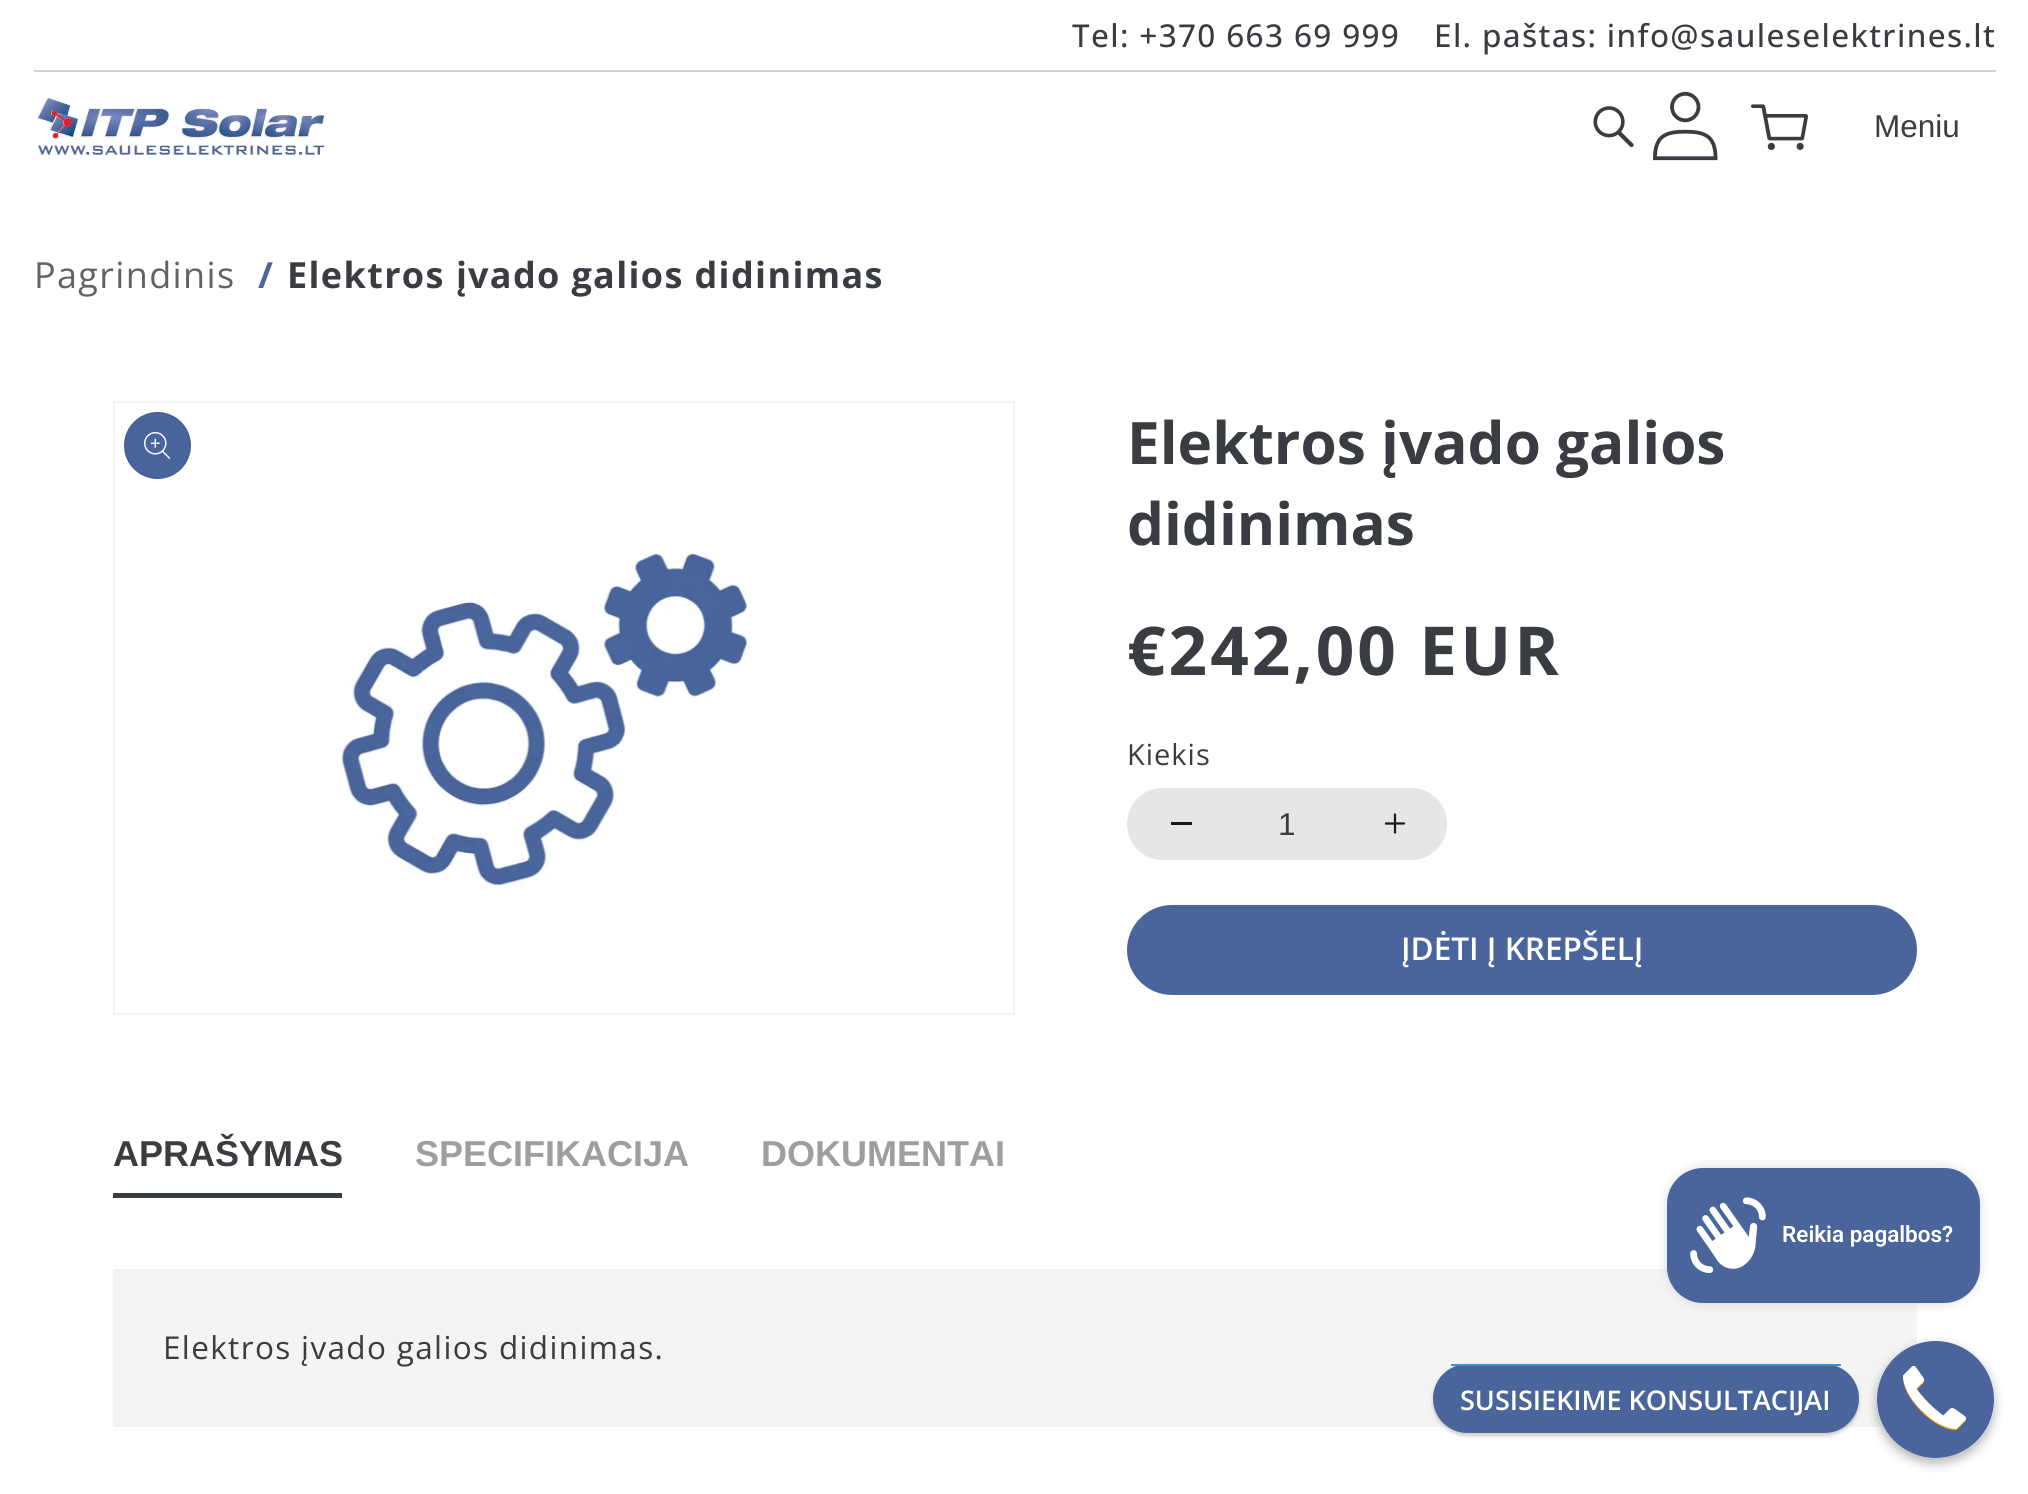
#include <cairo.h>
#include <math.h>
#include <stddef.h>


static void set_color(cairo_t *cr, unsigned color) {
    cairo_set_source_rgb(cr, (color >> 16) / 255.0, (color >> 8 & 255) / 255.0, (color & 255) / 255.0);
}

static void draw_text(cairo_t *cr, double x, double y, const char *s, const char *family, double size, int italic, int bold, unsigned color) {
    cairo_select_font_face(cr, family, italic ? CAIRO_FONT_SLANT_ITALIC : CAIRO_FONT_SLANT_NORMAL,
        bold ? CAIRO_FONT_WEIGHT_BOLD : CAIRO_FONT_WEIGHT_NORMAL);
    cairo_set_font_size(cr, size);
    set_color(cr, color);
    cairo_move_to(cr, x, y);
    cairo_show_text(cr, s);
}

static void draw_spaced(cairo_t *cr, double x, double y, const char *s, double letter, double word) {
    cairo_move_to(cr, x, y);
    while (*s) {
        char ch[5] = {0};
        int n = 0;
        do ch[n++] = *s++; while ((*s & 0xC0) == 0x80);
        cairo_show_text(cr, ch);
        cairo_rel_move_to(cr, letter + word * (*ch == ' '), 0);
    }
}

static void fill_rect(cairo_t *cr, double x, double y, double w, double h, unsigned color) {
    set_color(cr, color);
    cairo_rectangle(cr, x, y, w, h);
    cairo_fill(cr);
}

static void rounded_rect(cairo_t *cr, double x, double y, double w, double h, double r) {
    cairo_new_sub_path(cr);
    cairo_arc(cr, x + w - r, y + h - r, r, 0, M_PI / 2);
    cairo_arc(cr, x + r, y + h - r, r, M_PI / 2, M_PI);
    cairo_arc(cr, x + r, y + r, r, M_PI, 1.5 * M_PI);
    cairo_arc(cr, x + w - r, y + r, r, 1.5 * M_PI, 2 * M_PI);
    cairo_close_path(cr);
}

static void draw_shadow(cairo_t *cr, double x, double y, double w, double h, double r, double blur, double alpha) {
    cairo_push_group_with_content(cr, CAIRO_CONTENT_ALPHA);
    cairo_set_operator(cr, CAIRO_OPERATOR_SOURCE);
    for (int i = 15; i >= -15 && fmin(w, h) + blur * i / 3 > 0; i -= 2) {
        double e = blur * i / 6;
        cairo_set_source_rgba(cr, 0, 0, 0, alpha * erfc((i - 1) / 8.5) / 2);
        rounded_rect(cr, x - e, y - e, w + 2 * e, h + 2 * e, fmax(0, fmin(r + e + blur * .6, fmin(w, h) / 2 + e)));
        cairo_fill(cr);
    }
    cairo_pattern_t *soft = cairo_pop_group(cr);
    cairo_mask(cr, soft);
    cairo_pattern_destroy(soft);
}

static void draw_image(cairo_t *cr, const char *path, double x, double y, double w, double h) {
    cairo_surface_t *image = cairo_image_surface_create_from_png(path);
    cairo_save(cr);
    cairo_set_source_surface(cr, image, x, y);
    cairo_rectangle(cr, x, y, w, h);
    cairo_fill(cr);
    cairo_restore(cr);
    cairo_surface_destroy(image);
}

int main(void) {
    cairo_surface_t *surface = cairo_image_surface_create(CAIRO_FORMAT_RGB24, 2028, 1494);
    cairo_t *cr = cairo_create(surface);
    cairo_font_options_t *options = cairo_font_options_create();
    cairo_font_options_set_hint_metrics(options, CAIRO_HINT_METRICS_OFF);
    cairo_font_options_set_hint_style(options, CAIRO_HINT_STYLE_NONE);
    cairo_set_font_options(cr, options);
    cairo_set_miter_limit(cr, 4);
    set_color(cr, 0xFFFFFF);
    cairo_paint(cr);
    fill_rect(cr, 34, 70, 1962, 2, 0xD0D1D2);
    cairo_select_font_face(cr, "Open Sans Medium", CAIRO_FONT_SLANT_NORMAL, CAIRO_FONT_WEIGHT_NORMAL);
    cairo_set_font_size(cr, 31.5);
    set_color(cr, 0x393C41);
    draw_spaced(cr, 1072, 47, "Tel: +370 663 69 999", 1.35, 0);
    draw_spaced(cr, 1434, 47, "El. paštas: info@sauleselektrines.lt", 1.35, 0);
    draw_image(cr, "assets/img1.png", 36, 98, 289, 57);
    draw_image(cr, "assets/img2.png", 1593, 106, 41, 42);
    draw_image(cr, "assets/img3.png", 1653, 91, 65, 70);
    draw_image(cr, "assets/img4.png", 1751, 104, 57, 46);
    draw_text(cr, 1874, 137, "Meniu", "Liberation Sans", 31.5, 0, 0, 0x393C41);
    cairo_select_font_face(cr, "Open Sans", CAIRO_FONT_SLANT_NORMAL, CAIRO_FONT_WEIGHT_NORMAL);
    cairo_set_font_size(cr, 36);
    set_color(cr, 0x616367);
    draw_spaced(cr, 34, 288, "Pagrindinis", 1.35, 0);
    cairo_select_font_face(cr, "Open Sans", CAIRO_FONT_SLANT_NORMAL, CAIRO_FONT_WEIGHT_BOLD);
    set_color(cr, 0x49659B);
    draw_spaced(cr, 258, 288, "/", 1.35, 0);
    set_color(cr, 0x393C41);
    draw_spaced(cr, 287, 288, "Elektros", 1.35, 0);
    cairo_select_font_face(cr, "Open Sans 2", CAIRO_FONT_SLANT_NORMAL, CAIRO_FONT_WEIGHT_BOLD);
    draw_spaced(cr, 456, 288, "į", 1.35, 0);
    cairo_select_font_face(cr, "Open Sans", CAIRO_FONT_SLANT_NORMAL, CAIRO_FONT_WEIGHT_BOLD);
    draw_spaced(cr, 468, 288, "vado galios didinimas", 1.35, 0);
    cairo_rectangle(cr, 114, 402, 900, 612);
    set_color(cr, 0xF5F5F6);
    cairo_stroke(cr);
    draw_image(cr, "assets/img5.png", 340, 551, 408, 340);
    set_color(cr, 0x49659B);
    cairo_arc(cr, 157.5, 445.5, 33.5, 0, 2 * M_PI);
    cairo_fill(cr);
    cairo_arc(cr, 157.5, 445.5, 32.5, 0, 2 * M_PI);
    cairo_set_source_rgba(cr, 0.224, 0.235, 0.255, 0.1);
    cairo_stroke(cr);
    draw_image(cr, "assets/img6.png", 144, 432, 27, 27);
    draw_text(cr, 1127, 464, "Elektros", "Open Sans", 58.5, 0, 1, 0x393C41);
    draw_text(cr, 1381, 464, "į", "Open Sans 2", 58.5, 0, 1, 0x393C41);
    draw_text(cr, 1399, 464, "vado galios", "Open Sans", 58.5, 0, 1, 0x393C41);
    draw_text(cr, 1127, 545, "didinimas", "Open Sans", 58.5, 0, 1, 0x393C41);
    cairo_set_font_size(cr, 67.5);
    draw_spaced(cr, 1127, 675, "€242,00 EUR", 3, 0);
    cairo_select_font_face(cr, "Open Sans", CAIRO_FONT_SLANT_NORMAL, CAIRO_FONT_WEIGHT_NORMAL);
    cairo_set_font_size(cr, 29);
    draw_spaced(cr, 1127, 765, "Kiekis", 1, 0);
    set_color(cr, 0xE6E6E6);
    rounded_rect(cr, 1127, 788, 320, 72, 36);
    cairo_fill(cr);
    cairo_save(cr);
    rounded_rect(cr, 1127, 788, 320, 72, 36);
    cairo_clip(cr);
    fill_rect(cr, 1130, 788, 101, 72, 0xE6E6E6);
    cairo_restore(cr);
    fill_rect(cr, 1171, 822, 21, 3, 0x171A20);
    draw_text(cr, 1278, 835, "1", "Liberation Sans", 31.5, 0, 0, 0x393C41);
    cairo_save(cr);
    rounded_rect(cr, 1127, 788, 320, 72, 36);
    cairo_clip(cr);
    fill_rect(cr, 1343, 788, 102, 72, 0xE6E6E6);
    cairo_restore(cr);
    draw_image(cr, "assets/img7.png", 1384, 813, 22, 21);
    set_color(cr, 0x49659B);
    rounded_rect(cr, 1127, 905, 790, 90, 45);
    cairo_fill(cr);
    draw_text(cr, 1401, 960, "ĮDĖTI Į KREPŠELĮ", "Open Sans SemiBold", 31.5, 0, 0, 0xFFFFFF);
    fill_rect(cr, 113, 1193, 229, 5, 0x393C41);
    draw_text(cr, 113, 1166, "APRAŠYMAS", "Liberation Sans", 36, 0, 1, 0x393C41);
    draw_text(cr, 415, 1166, "SPECIFIKACIJA", "Liberation Sans", 36, 0, 1, 0x9C9EA0);
    draw_text(cr, 761, 1166, "DOKUMENTAI", "Liberation Sans", 36, 0, 1, 0x9C9EA0);
    fill_rect(cr, 113, 1269, 1804, 158, 0xF4F4F4);
    cairo_select_font_face(cr, "Open Sans", CAIRO_FONT_SLANT_NORMAL, CAIRO_FONT_WEIGHT_NORMAL);
    cairo_set_font_size(cr, 31.5);
    set_color(cr, 0x393C41);
    draw_spaced(cr, 163, 1359, "Elektros įvado galios didinimas.", 1.35, 0);
    set_color(cr, 0x000000);
    draw_shadow(cr, 1667, 1168, 313, 135, 36, 5.5, 0.15);
    set_color(cr, 0x49659B);
    rounded_rect(cr, 1667, 1168, 313, 135, 36);
    cairo_fill(cr);
    draw_image(cr, "assets/img8.png", 1690, 1197, 76, 77);
    draw_text(cr, 1782, 1242, "Reikia pagalbos?", "Roboto SemiBold", 22.5, 0, 0, 0xFFFFFF);
    cairo_save(cr);
    cairo_set_fill_rule(cr, CAIRO_FILL_RULE_EVEN_ODD);
    cairo_new_path(cr);
    cairo_move_to(cr, 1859, 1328);
    cairo_line_to(cr, 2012, 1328);
    cairo_line_to(cr, 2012, 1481);
    cairo_line_to(cr, 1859, 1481);
    cairo_close_path(cr);
    cairo_move_to(cr, 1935.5, 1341);
    cairo_curve_to(cr, 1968, 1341, 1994, 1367, 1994, 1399.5);
    cairo_curve_to(cr, 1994, 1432, 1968, 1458, 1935.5, 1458);
    cairo_curve_to(cr, 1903, 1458, 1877, 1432, 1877, 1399.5);
    cairo_curve_to(cr, 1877, 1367, 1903, 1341, 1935.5, 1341);
    cairo_close_path(cr);
    cairo_clip(cr);
    set_color(cr, 0x000000);
    draw_shadow(cr, 1877, 1346, 117, 117, 58.5, 5.5, 0.3);
    cairo_restore(cr);
    set_color(cr, 0x49659B);
    cairo_arc(cr, 1935.5, 1399.5, 58.5, 0, 2 * M_PI);
    cairo_fill(cr);
    draw_image(cr, "assets/img9.png", 1902, 1366, 64, 65);
    set_color(cr, 0x000000);
    draw_shadow(cr, 1433, 1366, 426, 70, 35, 2, 0.2);
    set_color(cr, 0x49659B);
    rounded_rect(cr, 1433, 1364, 426, 69, 34.5);
    cairo_fill(cr);
    fill_rect(cr, 1451, 1364, 390, 2, 0x3D91CD);
    draw_text(cr, 1460, 1410, "SUSISIEKIME KONSULTACIJAI", "Open Sans SemiBold", 27, 0, 0, 0xFFFFFF);
    cairo_surface_write_to_png(surface, "output.png");
    cairo_font_options_destroy(options);
    cairo_destroy(cr);
    cairo_surface_destroy(surface);
    return 0;
}
